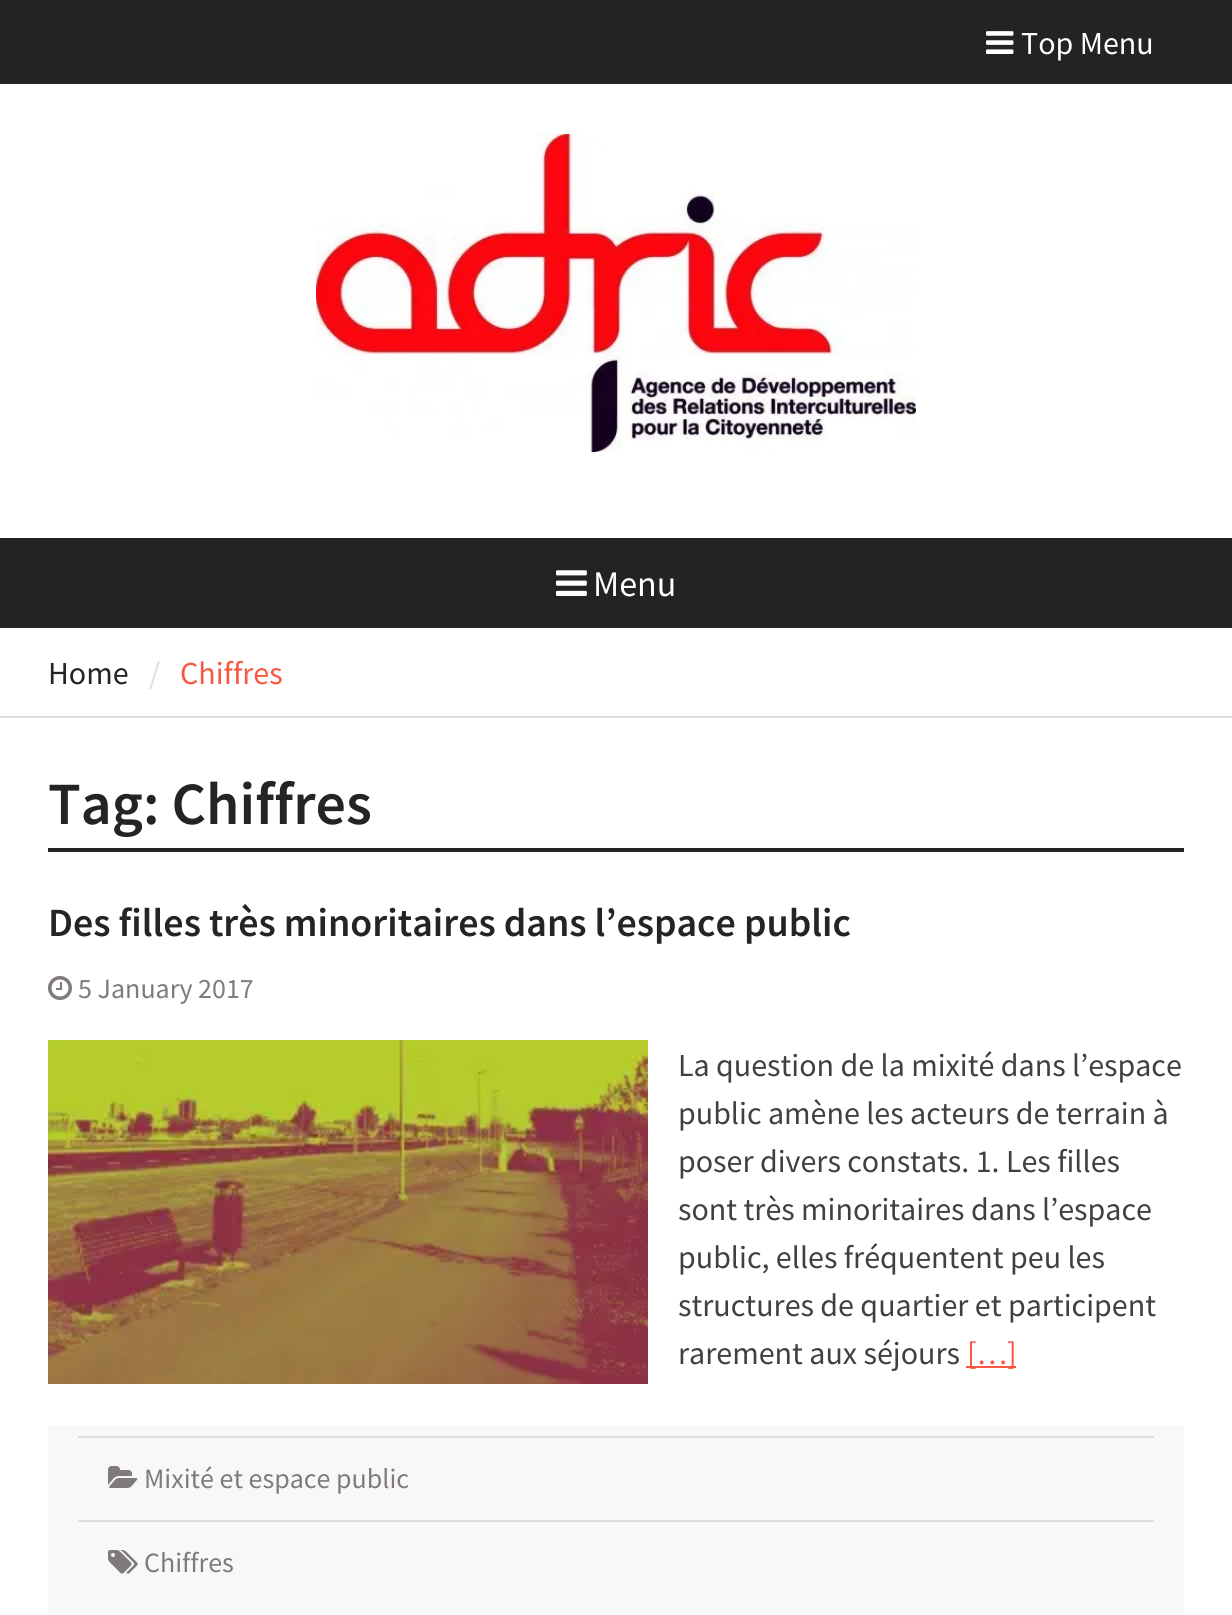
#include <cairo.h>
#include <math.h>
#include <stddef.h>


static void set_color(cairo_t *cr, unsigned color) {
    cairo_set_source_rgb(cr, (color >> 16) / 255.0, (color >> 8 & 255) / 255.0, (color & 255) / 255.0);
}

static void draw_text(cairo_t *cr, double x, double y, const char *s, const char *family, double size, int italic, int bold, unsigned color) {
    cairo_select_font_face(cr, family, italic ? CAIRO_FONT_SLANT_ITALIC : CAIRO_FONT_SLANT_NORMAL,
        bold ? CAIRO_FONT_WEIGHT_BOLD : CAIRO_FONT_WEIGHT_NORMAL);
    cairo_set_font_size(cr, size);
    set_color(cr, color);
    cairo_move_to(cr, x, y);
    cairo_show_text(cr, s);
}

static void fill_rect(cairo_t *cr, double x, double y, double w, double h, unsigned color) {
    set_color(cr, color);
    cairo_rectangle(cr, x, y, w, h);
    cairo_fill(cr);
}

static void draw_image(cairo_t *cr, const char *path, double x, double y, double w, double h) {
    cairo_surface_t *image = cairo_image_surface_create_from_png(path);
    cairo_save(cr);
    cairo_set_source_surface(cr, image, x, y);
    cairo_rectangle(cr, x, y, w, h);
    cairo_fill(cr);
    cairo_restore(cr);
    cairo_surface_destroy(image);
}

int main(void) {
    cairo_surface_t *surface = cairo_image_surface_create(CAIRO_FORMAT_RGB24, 1232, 1615);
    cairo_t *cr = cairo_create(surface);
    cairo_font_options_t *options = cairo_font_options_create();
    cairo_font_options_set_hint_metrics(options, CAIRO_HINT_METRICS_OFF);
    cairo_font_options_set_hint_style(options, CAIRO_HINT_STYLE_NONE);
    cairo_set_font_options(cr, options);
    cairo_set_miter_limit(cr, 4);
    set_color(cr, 0xFFFFFF);
    cairo_paint(cr);
    fill_rect(cr, 0, 0, 1232, 84, 0x232323);
    draw_image(cr, "assets/img1.png", 986, 31, 28, 23);
    draw_text(cr, 1021, 54, "Top Menu", "Source Sans Pro", 32, 0, 0, 0xFFFFFF);
    draw_image(cr, "assets/img2.png", 316, 134, 600, 318);
    fill_rect(cr, 0, 538, 1232, 90, 0x232323);
    draw_image(cr, "assets/img3.png", 556, 570, 31, 26);
    draw_text(cr, 593, 596, "Menu", "Source Sans Pro", 36, 0, 0, 0xFFFFFF);
    fill_rect(cr, 0, 716, 1232, 2, 0xDDDDDD);
    draw_text(cr, 48, 684, "Home", "Source Sans Pro", 32, 0, 0, 0x242424);
    draw_text(cr, 149, 684, "/", "Source Sans Pro", 32, 0, 0, 0xDDDDDD);
    draw_text(cr, 180, 684, "Chiffres", "Source Sans Pro", 32, 0, 0, 0xFA5742);
    fill_rect(cr, 48, 848, 1136, 4, 0x242424);
    draw_text(cr, 48, 824, "Tag: Chiffres", "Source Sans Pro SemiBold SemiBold", 60, 0, 0, 0x242424);
    draw_text(cr, 48, 936, "Des filles très minoritaires dans l’espace public", "Source Sans Pro SemiBold SemiBold", 40, 0, 0, 0x242424);
    draw_image(cr, "assets/img4.png", 48, 976, 24, 24);
    draw_text(cr, 78, 998, "5 January 2017", "Source Sans Pro", 28, 0, 0, 0x807A7A);
    draw_image(cr, "assets/img5.png", 48, 1040, 600, 344);
    draw_text(cr, 678, 1076, "La question de la mixité dans l’espace", "Source Sans Pro", 32, 0, 0, 0x404040);
    draw_text(cr, 678, 1124, "public amène les acteurs de terrain à", "Source Sans Pro", 32, 0, 0, 0x404040);
    draw_text(cr, 678, 1172, "poser divers constats. 1. Les filles", "Source Sans Pro", 32, 0, 0, 0x404040);
    draw_text(cr, 678, 1220, "sont très minoritaires dans l’espace", "Source Sans Pro", 32, 0, 0, 0x404040);
    draw_text(cr, 678, 1268, "public, elles fréquentent peu les", "Source Sans Pro", 32, 0, 0, 0x404040);
    draw_text(cr, 678, 1316, "structures de quartier et participent", "Source Sans Pro", 32, 0, 0, 0x404040);
    draw_text(cr, 678, 1364, "rarement aux séjours", "Source Sans Pro", 32, 0, 0, 0x404040);
    fill_rect(cr, 966, 1366, 50, 2, 0xFA5742);
    draw_text(cr, 967, 1364, "[…]", "Source Sans Pro", 32, 0, 0, 0xFA5742);
    fill_rect(cr, 48, 1426, 1136, 188, 0xF9F8F8);
    fill_rect(cr, 78, 1436, 1076, 2, 0xDDDDDD);
    draw_image(cr, "assets/img6.png", 108, 1466, 30, 22);
    draw_text(cr, 144, 1488, "Mixité et espace public", "Source Sans Pro", 28, 0, 0, 0x807A7A);
    fill_rect(cr, 78, 1520, 1076, 2, 0xDDDDDD);
    draw_image(cr, "assets/img7.png", 108, 1550, 30, 24);
    draw_text(cr, 144, 1572, "Chiffres", "Source Sans Pro", 28, 0, 0, 0x807A7A);
    cairo_surface_write_to_png(surface, "output.png");
    cairo_font_options_destroy(options);
    cairo_destroy(cr);
    cairo_surface_destroy(surface);
    return 0;
}
